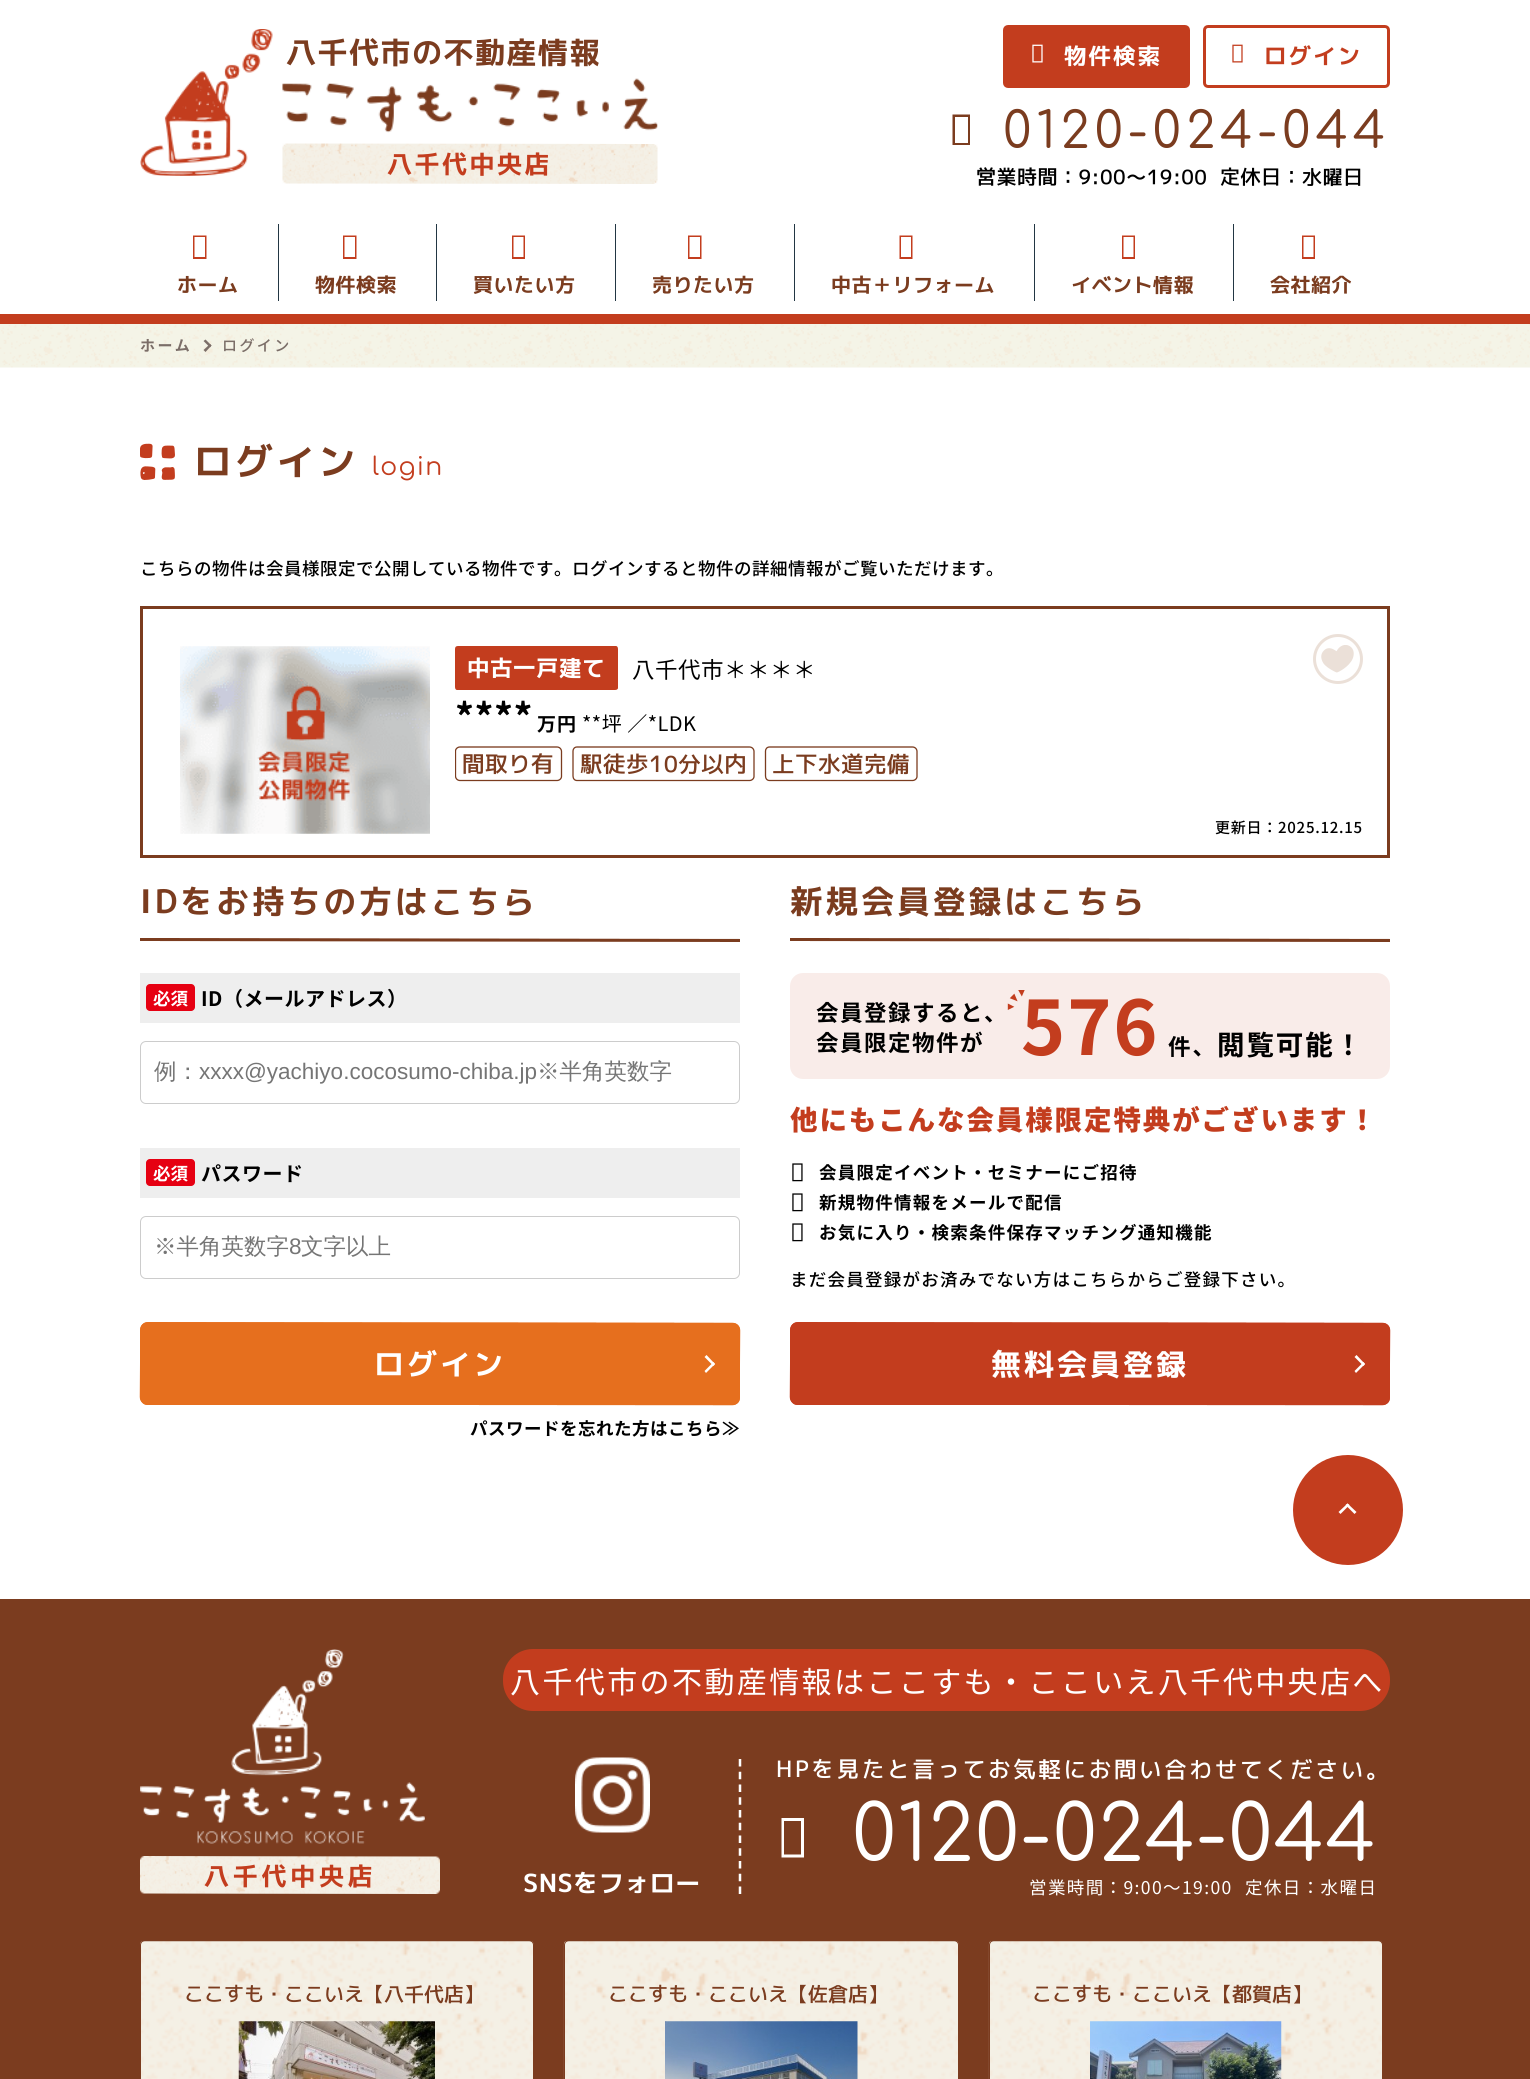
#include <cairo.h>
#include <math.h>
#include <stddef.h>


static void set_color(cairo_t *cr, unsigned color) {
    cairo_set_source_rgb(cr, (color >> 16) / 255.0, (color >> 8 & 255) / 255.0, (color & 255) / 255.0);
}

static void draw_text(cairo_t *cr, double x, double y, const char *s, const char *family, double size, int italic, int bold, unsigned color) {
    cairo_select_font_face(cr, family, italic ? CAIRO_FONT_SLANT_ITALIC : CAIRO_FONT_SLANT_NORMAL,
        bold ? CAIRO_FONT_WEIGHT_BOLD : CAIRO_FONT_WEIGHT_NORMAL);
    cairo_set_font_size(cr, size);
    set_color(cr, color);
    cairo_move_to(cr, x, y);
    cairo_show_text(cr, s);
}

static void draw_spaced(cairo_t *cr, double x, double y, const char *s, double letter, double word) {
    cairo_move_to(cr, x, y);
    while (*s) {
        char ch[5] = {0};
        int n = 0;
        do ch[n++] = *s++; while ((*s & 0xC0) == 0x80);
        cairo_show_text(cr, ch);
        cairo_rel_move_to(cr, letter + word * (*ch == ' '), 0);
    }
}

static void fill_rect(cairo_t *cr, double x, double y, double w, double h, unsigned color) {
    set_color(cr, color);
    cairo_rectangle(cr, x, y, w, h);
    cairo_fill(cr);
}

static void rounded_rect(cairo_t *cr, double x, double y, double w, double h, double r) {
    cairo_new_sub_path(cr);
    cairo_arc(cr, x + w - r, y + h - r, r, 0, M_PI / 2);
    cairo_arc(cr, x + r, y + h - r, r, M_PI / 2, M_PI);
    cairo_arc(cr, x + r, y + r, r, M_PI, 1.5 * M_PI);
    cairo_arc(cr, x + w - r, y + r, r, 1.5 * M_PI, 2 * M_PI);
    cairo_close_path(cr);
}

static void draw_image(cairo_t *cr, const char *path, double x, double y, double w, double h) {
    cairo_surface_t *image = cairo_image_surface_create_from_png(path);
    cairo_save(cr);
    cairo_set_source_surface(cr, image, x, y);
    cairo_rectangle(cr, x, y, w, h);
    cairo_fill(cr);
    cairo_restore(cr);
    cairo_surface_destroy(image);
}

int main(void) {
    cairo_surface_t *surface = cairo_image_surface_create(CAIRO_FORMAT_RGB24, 1530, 2079);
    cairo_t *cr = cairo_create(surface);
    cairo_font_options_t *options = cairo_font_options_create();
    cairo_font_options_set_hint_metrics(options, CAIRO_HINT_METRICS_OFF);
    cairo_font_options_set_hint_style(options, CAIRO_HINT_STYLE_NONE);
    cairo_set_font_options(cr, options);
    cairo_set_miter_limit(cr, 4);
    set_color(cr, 0xFFFFFF);
    cairo_paint(cr);
    draw_image(cr, "assets/img1.png", 140, 29, 518, 147);
    cairo_select_font_face(cr, "M PLUS 1p", CAIRO_FONT_SLANT_NORMAL, CAIRO_FONT_WEIGHT_BOLD);
    cairo_set_font_size(cr, 30);
    set_color(cr, 0x7B3C1F);
    cairo_save(cr);
    cairo_translate(cr, 286, 63);
    cairo_rotate(cr, 0.1 * M_PI / 180);
    draw_spaced(cr, 0, 0, "八千代市の不動産情報", 1.5, 0);
    cairo_restore(cr);
    draw_image(cr, "assets/img2.png", 282, 143, 376, 41);
    cairo_set_font_size(cr, 25);
    set_color(cr, 0xC33D1E);
    cairo_save(cr);
    cairo_translate(cr, 387, 173);
    cairo_rotate(cr, 0.1 * M_PI / 180);
    draw_spaced(cr, 0, 0, "八千代中央店", 2.5, 0);
    cairo_restore(cr);
    rounded_rect(cr, 1004.5, 26.5, 184, 60, 3.5);
    cairo_fill_preserve(cr);
    cairo_set_line_width(cr, 3);
    cairo_stroke(cr);
    draw_image(cr, "assets/img3.png", 1032, 44, 11, 19);
    cairo_set_font_size(cr, 22.5);
    set_color(cr, 0xFFFFFF);
    cairo_save(cr);
    cairo_translate(cr, 1064, 64);
    cairo_rotate(cr, 0.1 * M_PI / 180);
    draw_spaced(cr, 0, 0, "物件検索", 2, 0);
    cairo_restore(cr);
    rounded_rect(cr, 1204.5, 26.5, 184, 60, 3.5);
    set_color(cr, 0xC33D1E);
    cairo_stroke(cr);
    draw_image(cr, "assets/img4.png", 1232, 44, 11, 19);
    cairo_save(cr);
    cairo_translate(cr, 1264, 64);
    cairo_rotate(cr, 0.1 * M_PI / 180);
    draw_spaced(cr, 0, 0, "ログイン", 2, 0);
    cairo_restore(cr);
    set_color(cr, 0x7B3C1F);
    cairo_new_path(cr);
    cairo_move_to(cr, 952.5, 145);
    cairo_line_to(cr, 952.5, 114.5);
    cairo_line_to(cr, 970, 114.5);
    cairo_line_to(cr, 970, 145);
    cairo_close_path(cr);
    cairo_move_to(cr, 955, 143);
    cairo_line_to(cr, 968, 143);
    cairo_line_to(cr, 968, 117);
    cairo_line_to(cr, 955, 117);
    cairo_close_path(cr);
    cairo_fill(cr);
    cairo_select_font_face(cr, "Comfortaa", CAIRO_FONT_SLANT_NORMAL, CAIRO_FONT_WEIGHT_NORMAL);
    cairo_set_font_size(cr, 50);
    draw_spaced(cr, 1003, 148, "0120-024-044", 5, 0);
    cairo_select_font_face(cr, "M PLUS 1p Medium", CAIRO_FONT_SLANT_NORMAL, CAIRO_FONT_WEIGHT_NORMAL);
    cairo_set_font_size(cr, 20);
    set_color(cr, 0x000000);
    cairo_save(cr);
    cairo_translate(cr, 976, 184);
    cairo_rotate(cr, 0.1 * M_PI / 180);
    draw_spaced(cr, 0, 0, "営業時間：9:00〜19:00", 0.5, 0);
    cairo_restore(cr);
    cairo_save(cr);
    cairo_translate(cr, 1220, 184);
    cairo_rotate(cr, 0.1 * M_PI / 180);
    draw_spaced(cr, 0, 0, "定休日：水曜日", 0.5, 0);
    cairo_restore(cr);
    fill_rect(cr, 0, 314, 1530, 10, 0xC33D1E);
    cairo_new_path(cr);
    cairo_move_to(cr, 193, 259);
    cairo_line_to(cr, 193, 235.5);
    cairo_line_to(cr, 206.5, 235.5);
    cairo_line_to(cr, 206.5, 259);
    cairo_close_path(cr);
    cairo_move_to(cr, 194.5, 257);
    cairo_line_to(cr, 205, 257);
    cairo_line_to(cr, 205, 237);
    cairo_line_to(cr, 194.5, 237);
    cairo_close_path(cr);
    cairo_fill(cr);
    cairo_select_font_face(cr, "M PLUS 1p", CAIRO_FONT_SLANT_NORMAL, CAIRO_FONT_WEIGHT_BOLD);
    set_color(cr, 0x7B3C1F);
    cairo_save(cr);
    cairo_translate(cr, 177, 292);
    cairo_rotate(cr, 0.1 * M_PI / 180);
    draw_spaced(cr, 0, 0, "ホーム", 0.5, 0);
    cairo_restore(cr);
    fill_rect(cr, 278, 224, 1, 77, 0x223643);
    set_color(cr, 0xC33D1E);
    cairo_new_path(cr);
    cairo_move_to(cr, 343, 259);
    cairo_line_to(cr, 343, 235.5);
    cairo_line_to(cr, 356.5, 235.5);
    cairo_line_to(cr, 356.5, 259);
    cairo_close_path(cr);
    cairo_move_to(cr, 344.5, 257);
    cairo_line_to(cr, 355, 257);
    cairo_line_to(cr, 355, 237);
    cairo_line_to(cr, 344.5, 237);
    cairo_close_path(cr);
    cairo_fill(cr);
    set_color(cr, 0x7B3C1F);
    cairo_save(cr);
    cairo_translate(cr, 315, 292);
    cairo_rotate(cr, 0.1 * M_PI / 180);
    draw_spaced(cr, 0, 0, "物件検索", 0.5, 0);
    cairo_restore(cr);
    fill_rect(cr, 436, 224, 1, 77, 0x223643);
    set_color(cr, 0xC33D1E);
    cairo_new_path(cr);
    cairo_move_to(cr, 512, 259);
    cairo_line_to(cr, 512, 235.5);
    cairo_line_to(cr, 525, 235.5);
    cairo_line_to(cr, 525, 259);
    cairo_close_path(cr);
    cairo_move_to(cr, 513.5, 257);
    cairo_line_to(cr, 523.5, 257);
    cairo_line_to(cr, 523.5, 237);
    cairo_line_to(cr, 513.5, 237);
    cairo_close_path(cr);
    cairo_fill(cr);
    set_color(cr, 0x7B3C1F);
    cairo_save(cr);
    cairo_translate(cr, 473, 292);
    cairo_rotate(cr, 0.1 * M_PI / 180);
    draw_spaced(cr, 0, 0, "買いたい方", 0.5, 0);
    cairo_restore(cr);
    fill_rect(cr, 615, 224, 1, 77, 0x223643);
    set_color(cr, 0xC33D1E);
    cairo_new_path(cr);
    cairo_move_to(cr, 688, 259);
    cairo_line_to(cr, 688, 235.5);
    cairo_line_to(cr, 701.5, 235.5);
    cairo_line_to(cr, 701.5, 259);
    cairo_close_path(cr);
    cairo_move_to(cr, 689.5, 257);
    cairo_line_to(cr, 700, 257);
    cairo_line_to(cr, 700, 237);
    cairo_line_to(cr, 689.5, 237);
    cairo_close_path(cr);
    cairo_fill(cr);
    set_color(cr, 0x7B3C1F);
    cairo_save(cr);
    cairo_translate(cr, 652, 292);
    cairo_rotate(cr, 0.1 * M_PI / 180);
    draw_spaced(cr, 0, 0, "売りたい方", 0.5, 0);
    cairo_restore(cr);
    fill_rect(cr, 794, 224, 1, 77, 0x223643);
    set_color(cr, 0xC33D1E);
    cairo_new_path(cr);
    cairo_move_to(cr, 899.5, 259);
    cairo_line_to(cr, 899.5, 235.5);
    cairo_line_to(cr, 912.5, 235.5);
    cairo_line_to(cr, 912.5, 259);
    cairo_close_path(cr);
    cairo_move_to(cr, 901, 257);
    cairo_line_to(cr, 911, 257);
    cairo_line_to(cr, 911, 237);
    cairo_line_to(cr, 901, 237);
    cairo_close_path(cr);
    cairo_fill(cr);
    set_color(cr, 0x7B3C1F);
    cairo_save(cr);
    cairo_translate(cr, 831, 292);
    cairo_rotate(cr, 0.1 * M_PI / 180);
    draw_spaced(cr, 0, 0, "中古＋リフォーム", 0.5, 0);
    cairo_restore(cr);
    fill_rect(cr, 1034, 224, 1, 77, 0x223643);
    set_color(cr, 0xC33D1E);
    cairo_new_path(cr);
    cairo_move_to(cr, 1122, 259);
    cairo_line_to(cr, 1122, 235.5);
    cairo_line_to(cr, 1135, 235.5);
    cairo_line_to(cr, 1135, 259);
    cairo_close_path(cr);
    cairo_move_to(cr, 1123.5, 257);
    cairo_line_to(cr, 1133.5, 257);
    cairo_line_to(cr, 1133.5, 237);
    cairo_line_to(cr, 1123.5, 237);
    cairo_close_path(cr);
    cairo_fill(cr);
    set_color(cr, 0x7B3C1F);
    cairo_save(cr);
    cairo_translate(cr, 1071, 292);
    cairo_rotate(cr, 0.1 * M_PI / 180);
    draw_spaced(cr, 0, 0, "イベント情報", 0.5, 0);
    cairo_restore(cr);
    fill_rect(cr, 1233, 224, 1, 77, 0x223643);
    set_color(cr, 0xC33D1E);
    cairo_new_path(cr);
    cairo_move_to(cr, 1302, 259);
    cairo_line_to(cr, 1302, 235.5);
    cairo_line_to(cr, 1315, 235.5);
    cairo_line_to(cr, 1315, 259);
    cairo_close_path(cr);
    cairo_move_to(cr, 1303.5, 257);
    cairo_line_to(cr, 1313.5, 257);
    cairo_line_to(cr, 1313.5, 237);
    cairo_line_to(cr, 1303.5, 237);
    cairo_close_path(cr);
    cairo_fill(cr);
    set_color(cr, 0x7B3C1F);
    cairo_save(cr);
    cairo_translate(cr, 1270, 292);
    cairo_rotate(cr, 0.1 * M_PI / 180);
    draw_spaced(cr, 0, 0, "会社紹介", 0.5, 0);
    cairo_restore(cr);
    draw_image(cr, "assets/img5.png", 0, 324, 1530, 44);
    cairo_select_font_face(cr, "Noto Sans JP", CAIRO_FONT_SLANT_NORMAL, CAIRO_FONT_WEIGHT_BOLD);
    cairo_set_font_size(cr, 15);
    set_color(cr, 0x7B6E68);
    draw_spaced(cr, 140, 351, "ホーム", 2.4, 0);
    cairo_new_path(cr);
    cairo_move_to(cr, 205.5, 339.5);
    cairo_line_to(cr, 211.5, 345.5);
    cairo_line_to(cr, 210, 347.5);
    cairo_line_to(cr, 203.5, 341);
    cairo_close_path(cr);
    cairo_fill(cr);
    cairo_new_path(cr);
    cairo_move_to(cr, 210, 344);
    cairo_line_to(cr, 211.5, 345.5);
    cairo_line_to(cr, 205.5, 352);
    cairo_line_to(cr, 203.5, 350);
    cairo_close_path(cr);
    cairo_fill(cr);
    cairo_select_font_face(cr, "Noto Sans JP Medium", CAIRO_FONT_SLANT_NORMAL, CAIRO_FONT_WEIGHT_NORMAL);
    draw_spaced(cr, 222, 351, "ログイン", 2.4, 0);
    draw_image(cr, "assets/img6.png", 140, 443, 35, 37);
    cairo_select_font_face(cr, "M PLUS 1p", CAIRO_FONT_SLANT_NORMAL, CAIRO_FONT_WEIGHT_BOLD);
    cairo_set_font_size(cr, 37.5);
    set_color(cr, 0x7B3C1F);
    cairo_save(cr);
    cairo_translate(cr, 194, 475);
    cairo_rotate(cr, 0.1 * M_PI / 180);
    draw_spaced(cr, 0, 0, "ログイン", 3.75, 0);
    cairo_restore(cr);
    cairo_select_font_face(cr, "Comfortaa", CAIRO_FONT_SLANT_NORMAL, CAIRO_FONT_WEIGHT_NORMAL);
    cairo_set_font_size(cr, 25);
    set_color(cr, 0xC33D1E);
    draw_spaced(cr, 372, 475, "login", 1.25, 0);
    cairo_select_font_face(cr, "Noto Sans JP Medium", CAIRO_FONT_SLANT_NORMAL, CAIRO_FONT_WEIGHT_NORMAL);
    cairo_set_font_size(cr, 17.5);
    set_color(cr, 0x000000);
    draw_spaced(cr, 140, 575, "こちらの物件は会員様限定で公開している物件です。ログインすると物件の詳細情報がご覧いただけます。", 0.5, 0);
    cairo_rectangle(cr, 141.5, 607.5, 1247, 249);
    set_color(cr, 0x7B3C1F);
    cairo_stroke(cr);
    cairo_arc(cr, 1338, 659, 23.5, 0, 2 * M_PI);
    set_color(cr, 0xEBE0D8);
    cairo_stroke(cr);
    draw_image(cr, "assets/img7.png", 1321, 645, 33, 28);
    draw_image(cr, "assets/img8.png", 180, 646, 250, 188);
    set_color(cr, 0xC33D1E);
    cairo_new_path(cr);
    cairo_move_to(cr, 458, 646);
    cairo_line_to(cr, 616, 646);
    cairo_curve_to(cr, 617, 646, 618, 647, 618, 649);
    cairo_line_to(cr, 618, 688);
    cairo_curve_to(cr, 618, 689, 617, 690, 615, 690);
    cairo_line_to(cr, 457, 690);
    cairo_curve_to(cr, 456, 690, 455, 689, 455, 687);
    cairo_line_to(cr, 455, 649);
    cairo_curve_to(cr, 455, 647, 456, 646, 458, 646);
    cairo_close_path(cr);
    cairo_fill(cr);
    cairo_select_font_face(cr, "M PLUS 1p", CAIRO_FONT_SLANT_NORMAL, CAIRO_FONT_WEIGHT_BOLD);
    cairo_set_font_size(cr, 22.5);
    set_color(cr, 0xFFFFFF);
    cairo_save(cr);
    cairo_translate(cr, 467, 676);
    cairo_rotate(cr, 0.1 * M_PI / 180);
    draw_spaced(cr, 0, 0, "中古一戸建て", 0.5, 0);
    cairo_restore(cr);
    cairo_select_font_face(cr, "Noto Sans JP", CAIRO_FONT_SLANT_NORMAL, CAIRO_FONT_WEIGHT_NORMAL);
    set_color(cr, 0x000000);
    draw_spaced(cr, 632, 678, "八千代市＊＊＊＊", 0.5, 0);
    cairo_select_font_face(cr, "Noto Sans JP", CAIRO_FONT_SLANT_NORMAL, CAIRO_FONT_WEIGHT_BOLD);
    cairo_set_font_size(cr, 37.5);
    draw_spaced(cr, 455, 731, "****", 0.5, 0);
    cairo_set_font_size(cr, 19);
    draw_spaced(cr, 537, 731, "万円", 1, 0);
    cairo_select_font_face(cr, "Noto Sans JP", CAIRO_FONT_SLANT_NORMAL, CAIRO_FONT_WEIGHT_NORMAL);
    cairo_set_font_size(cr, 20);
    draw_spaced(cr, 582, 731, "**坪 ／*LDK", 0.5, 0);
    cairo_save(cr);
    cairo_rectangle(cr, 455, 746, 914, 47);
    cairo_clip(cr);
    cairo_new_path(cr);
    cairo_move_to(cr, 460, 747);
    cairo_line_to(cr, 557, 747);
    cairo_curve_to(cr, 559.5, 747, 561.5, 749, 561.5, 751.5);
    cairo_line_to(cr, 561.5, 776.5);
    cairo_curve_to(cr, 561.5, 778.5, 559.5, 780.5, 557, 780.5);
    cairo_line_to(cr, 460, 780.5);
    cairo_curve_to(cr, 457.5, 780.5, 455.5, 778.5, 455.5, 776);
    cairo_line_to(cr, 455.5, 751);
    cairo_curve_to(cr, 455.5, 749, 457.5, 747, 460, 747);
    cairo_close_path(cr);
    set_color(cr, 0x7B3C1F);
    cairo_set_line_width(cr, 1.3);
    cairo_stroke(cr);
    cairo_restore(cr);
    cairo_select_font_face(cr, "M PLUS 1p Medium", CAIRO_FONT_SLANT_NORMAL, CAIRO_FONT_WEIGHT_NORMAL);
    cairo_set_font_size(cr, 22.5);
    set_color(cr, 0x7B3C1F);
    cairo_save(cr);
    cairo_translate(cr, 462, 772);
    cairo_rotate(cr, 0.1 * M_PI / 180);
    draw_spaced(cr, 0, 0, "間取り有", 0.5, 0);
    cairo_restore(cr);
    cairo_new_path(cr);
    cairo_move_to(cr, 577, 747);
    cairo_line_to(cr, 749.5, 747);
    cairo_curve_to(cr, 752, 747, 754, 749, 754, 751.5);
    cairo_line_to(cr, 754, 776.5);
    cairo_curve_to(cr, 754, 778.5, 752, 780.5, 749.5, 780.5);
    cairo_line_to(cr, 577, 780.5);
    cairo_curve_to(cr, 574.5, 780.5, 573, 778.5, 573, 776);
    cairo_line_to(cr, 573, 751);
    cairo_curve_to(cr, 573, 749, 574.5, 747, 577, 747);
    cairo_close_path(cr);
    cairo_set_line_width(cr, 1.3);
    cairo_stroke(cr);
    cairo_save(cr);
    cairo_translate(cr, 580, 772);
    cairo_rotate(cr, 0.1 * M_PI / 180);
    draw_spaced(cr, 0, 0, "駅徒歩10分以内", 0.5, 0);
    cairo_restore(cr);
    cairo_new_path(cr);
    cairo_move_to(cr, 769.5, 747);
    cairo_line_to(cr, 912.5, 747);
    cairo_curve_to(cr, 915, 747, 917, 749, 917, 751.5);
    cairo_line_to(cr, 917, 776.5);
    cairo_curve_to(cr, 917, 778.5, 915, 780.5, 912.5, 780.5);
    cairo_line_to(cr, 769.5, 780.5);
    cairo_curve_to(cr, 767, 780.5, 765.5, 778.5, 765.5, 776);
    cairo_line_to(cr, 765.5, 751);
    cairo_curve_to(cr, 765.5, 749, 767, 747, 769.5, 747);
    cairo_close_path(cr);
    cairo_stroke(cr);
    cairo_save(cr);
    cairo_translate(cr, 772, 772);
    cairo_rotate(cr, 0.1 * M_PI / 180);
    draw_spaced(cr, 0, 0, "上下水道完備", 0.5, 0);
    cairo_restore(cr);
    cairo_select_font_face(cr, "Noto Sans JP Medium", CAIRO_FONT_SLANT_NORMAL, CAIRO_FONT_WEIGHT_NORMAL);
    cairo_set_font_size(cr, 15);
    set_color(cr, 0x000000);
    draw_spaced(cr, 1215, 833, "更新日：2025.12.15", 0.75, 0);
    set_color(cr, 0x7B3C1F);
    cairo_new_path(cr);
    cairo_move_to(cr, 140, 938);
    cairo_line_to(cr, 740, 939);
    cairo_line_to(cr, 740, 942);
    cairo_line_to(cr, 140, 941);
    cairo_close_path(cr);
    cairo_fill(cr);
    cairo_select_font_face(cr, "M PLUS 1p", CAIRO_FONT_SLANT_NORMAL, CAIRO_FONT_WEIGHT_BOLD);
    cairo_set_font_size(cr, 32.5);
    cairo_save(cr);
    cairo_translate(cr, 140, 913);
    cairo_rotate(cr, 0.1 * M_PI / 180);
    draw_spaced(cr, 0, 0, "IDをお持ちの方はこちら", 3.25, 0);
    cairo_restore(cr);
    fill_rect(cr, 140, 973, 600, 50, 0xEEEEEE);
    set_color(cr, 0xE60012);
    rounded_rect(cr, 146, 984, 49, 27, 4);
    cairo_fill(cr);
    draw_text(cr, 153, 1005, "必須", "Noto Sans JP", 17.5, 0, 1, 0xFFFFFF);
    cairo_set_font_size(cr, 20);
    set_color(cr, 0x000000);
    draw_spaced(cr, 201, 1006, "ID（メールアドレス）", 0.5, 0);
    rounded_rect(cr, 140.5, 1041.5, 599, 62, 5.5);
    set_color(cr, 0xCCCCCC);
    cairo_set_line_width(cr, 1);
    cairo_stroke(cr);
    draw_text(cr, 154, 1079, "例：", "WenQuanYi Zen Hei Medium", 22.5, 0, 0, 0x757575);
    draw_text(cr, 199, 1079, "xxxx@yachiyo.cocosumo-chiba.jp", "Liberation Sans", 22.5, 0, 0, 0x757575);
    draw_text(cr, 537, 1079, "※半角英数字", "WenQuanYi Zen Hei Medium", 22.5, 0, 0, 0x757575);
    fill_rect(cr, 140, 1148, 600, 50, 0xEEEEEE);
    set_color(cr, 0xE60012);
    rounded_rect(cr, 146, 1159, 49, 27, 4);
    cairo_fill(cr);
    draw_text(cr, 153, 1180, "必須", "Noto Sans JP", 17.5, 0, 1, 0xFFFFFF);
    cairo_set_font_size(cr, 20);
    set_color(cr, 0x000000);
    draw_spaced(cr, 201, 1181, "パスワード", 0.5, 0);
    rounded_rect(cr, 140.5, 1216.5, 599, 62, 5.5);
    set_color(cr, 0xCCCCCC);
    cairo_stroke(cr);
    draw_text(cr, 154, 1254, "※半角英数字", "WenQuanYi Zen Hei Medium", 22.5, 0, 0, 0x757575);
    draw_text(cr, 289, 1254, "8", "Liberation Sans", 22.5, 0, 0, 0x757575);
    draw_text(cr, 301, 1254, "文字以上", "WenQuanYi Zen Hei Medium", 22.5, 0, 0, 0x757575);
    set_color(cr, 0xE66F1E);
    cairo_new_path(cr);
    cairo_move_to(cr, 148, 1322);
    cairo_line_to(cr, 733, 1323);
    cairo_curve_to(cr, 737, 1323, 740, 1326, 740, 1330);
    cairo_line_to(cr, 740, 1398);
    cairo_curve_to(cr, 740, 1402, 737, 1405, 732, 1405);
    cairo_line_to(cr, 147, 1405);
    cairo_curve_to(cr, 143, 1405, 140, 1401, 140, 1397);
    cairo_line_to(cr, 140, 1330);
    cairo_curve_to(cr, 140, 1326, 143, 1322, 148, 1322);
    cairo_close_path(cr);
    cairo_fill(cr);
    cairo_new_path(cr);
    cairo_move_to(cr, 147.5, 1323.5);
    cairo_line_to(cr, 732.5, 1324);
    cairo_curve_to(cr, 736, 1324, 739, 1327, 739, 1330.5);
    cairo_line_to(cr, 738.5, 1398);
    cairo_curve_to(cr, 738.5, 1401, 736, 1404, 732.5, 1404);
    cairo_line_to(cr, 147.5, 1403.5);
    cairo_curve_to(cr, 144, 1403.5, 141, 1400.5, 141, 1397);
    cairo_line_to(cr, 141.5, 1329.5);
    cairo_curve_to(cr, 141.5, 1326.5, 144, 1323.5, 147.5, 1323.5);
    cairo_close_path(cr);
    cairo_set_line_width(cr, 2.5);
    cairo_stroke(cr);
    cairo_select_font_face(cr, "M PLUS 1p", CAIRO_FONT_SLANT_NORMAL, CAIRO_FONT_WEIGHT_BOLD);
    cairo_set_font_size(cr, 30);
    set_color(cr, 0xFFFFFF);
    cairo_save(cr);
    cairo_translate(cr, 374, 1375);
    cairo_rotate(cr, 0.1 * M_PI / 180);
    draw_spaced(cr, 0, 0, "ログイン", 3, 0);
    cairo_restore(cr);
    cairo_new_path(cr);
    cairo_move_to(cr, 706.5, 1355);
    cairo_line_to(cr, 715, 1364);
    cairo_line_to(cr, 713.5, 1366);
    cairo_line_to(cr, 704.5, 1357);
    cairo_close_path(cr);
    cairo_fill(cr);
    cairo_new_path(cr);
    cairo_move_to(cr, 713.5, 1362);
    cairo_line_to(cr, 715, 1364);
    cairo_line_to(cr, 706, 1373);
    cairo_line_to(cr, 704.5, 1371);
    cairo_close_path(cr);
    cairo_fill(cr);
    cairo_select_font_face(cr, "Noto Sans JP", CAIRO_FONT_SLANT_NORMAL, CAIRO_FONT_WEIGHT_BOLD);
    cairo_set_font_size(cr, 17.5);
    set_color(cr, 0x000000);
    draw_spaced(cr, 470, 1435, "パスワードを忘れた方はこちら≫", 0.5, 0);
    set_color(cr, 0x7B3C1F);
    cairo_new_path(cr);
    cairo_move_to(cr, 790, 938);
    cairo_line_to(cr, 1390, 939);
    cairo_line_to(cr, 1390, 942);
    cairo_line_to(cr, 790, 941);
    cairo_close_path(cr);
    cairo_fill(cr);
    cairo_select_font_face(cr, "M PLUS 1p", CAIRO_FONT_SLANT_NORMAL, CAIRO_FONT_WEIGHT_BOLD);
    cairo_set_font_size(cr, 32.5);
    cairo_save(cr);
    cairo_translate(cr, 790, 913);
    cairo_rotate(cr, 0.1 * M_PI / 180);
    draw_spaced(cr, 0, 0, "新規会員登録はこちら", 3.25, 0);
    cairo_restore(cr);
    set_color(cr, 0xF9ECE9);
    rounded_rect(cr, 790, 973, 600, 106, 13);
    cairo_fill(cr);
    cairo_select_font_face(cr, "Noto Sans JP", CAIRO_FONT_SLANT_NORMAL, CAIRO_FONT_WEIGHT_BOLD);
    cairo_set_font_size(cr, 22.5);
    set_color(cr, 0x000000);
    draw_spaced(cr, 816, 1021, "会員登録すると、", 1.5, 0);
    draw_spaced(cr, 816, 1051, "会員限定物件が", 1.5, 0);
    cairo_set_font_size(cr, 75);
    set_color(cr, 0xC33D1E);
    draw_spaced(cr, 1021, 1055, "576", 1.9, 0);
    draw_image(cr, "assets/img9.png", 1007, 990, 18, 20);
    cairo_set_font_size(cr, 22.5);
    set_color(cr, 0x000000);
    draw_spaced(cr, 1168, 1055, "件、", 1.9, 0);
    cairo_set_font_size(cr, 27.5);
    draw_spaced(cr, 1217, 1055, "閲覧可能！", 1.9, 0);
    cairo_select_font_face(cr, "Noto Sans JP Black", CAIRO_FONT_SLANT_NORMAL, CAIRO_FONT_WEIGHT_NORMAL);
    set_color(cr, 0xC33D1E);
    draw_spaced(cr, 790, 1130, "他にもこんな会員様限定特典がございます！", 1.9, 0);
    draw_image(cr, "assets/img10.png", 792, 1163, 11, 19);
    cairo_select_font_face(cr, "Noto Sans JP", CAIRO_FONT_SLANT_NORMAL, CAIRO_FONT_WEIGHT_BOLD);
    cairo_set_font_size(cr, 17.5);
    set_color(cr, 0x000000);
    draw_spaced(cr, 819, 1179, "会員限定イベント・セミナーにご招待", 1.25, 0);
    draw_image(cr, "assets/img10.png", 792, 1193, 11, 19);
    draw_spaced(cr, 819, 1209, "新規物件情報をメールで配信", 1.25, 0);
    draw_image(cr, "assets/img10.png", 792, 1223, 11, 19);
    draw_spaced(cr, 819, 1239, "お気に入り・検索条件保存マッチング通知機能", 1.25, 0);
    cairo_select_font_face(cr, "Noto Sans JP Medium", CAIRO_FONT_SLANT_NORMAL, CAIRO_FONT_WEIGHT_NORMAL);
    draw_spaced(cr, 790, 1286, "まだ会員登録がお済みでない方はこちらからご登録下さい。", 1.25, 0);
    set_color(cr, 0xC33D1E);
    cairo_new_path(cr);
    cairo_move_to(cr, 798, 1322);
    cairo_line_to(cr, 1383, 1323);
    cairo_curve_to(cr, 1387, 1323, 1390, 1326, 1390, 1330);
    cairo_line_to(cr, 1390, 1398);
    cairo_curve_to(cr, 1390, 1402, 1387, 1405, 1382, 1405);
    cairo_line_to(cr, 797, 1405);
    cairo_curve_to(cr, 793, 1405, 790, 1401, 790, 1397);
    cairo_line_to(cr, 790, 1330);
    cairo_curve_to(cr, 790, 1326, 793, 1322, 798, 1322);
    cairo_close_path(cr);
    cairo_fill(cr);
    cairo_new_path(cr);
    cairo_move_to(cr, 797.5, 1323.5);
    cairo_line_to(cr, 1382.5, 1324);
    cairo_curve_to(cr, 1386, 1324, 1389, 1327, 1389, 1330.5);
    cairo_line_to(cr, 1388.5, 1398);
    cairo_curve_to(cr, 1388.5, 1401, 1386, 1404, 1382.5, 1404);
    cairo_line_to(cr, 797.5, 1403.5);
    cairo_curve_to(cr, 794, 1403.5, 791, 1400.5, 791, 1397);
    cairo_line_to(cr, 791.5, 1329.5);
    cairo_curve_to(cr, 791.5, 1326.5, 794, 1323.5, 797.5, 1323.5);
    cairo_close_path(cr);
    cairo_stroke(cr);
    cairo_select_font_face(cr, "M PLUS 1p", CAIRO_FONT_SLANT_NORMAL, CAIRO_FONT_WEIGHT_BOLD);
    cairo_set_font_size(cr, 30);
    set_color(cr, 0xFFFFFF);
    cairo_save(cr);
    cairo_translate(cr, 991, 1375);
    cairo_rotate(cr, 0.1 * M_PI / 180);
    draw_spaced(cr, 0, 0, "無料会員登録", 3, 0);
    cairo_restore(cr);
    cairo_new_path(cr);
    cairo_move_to(cr, 1356.5, 1355);
    cairo_line_to(cr, 1365, 1364);
    cairo_line_to(cr, 1363.5, 1366);
    cairo_line_to(cr, 1354.5, 1357);
    cairo_close_path(cr);
    cairo_fill(cr);
    cairo_new_path(cr);
    cairo_move_to(cr, 1363.5, 1362);
    cairo_line_to(cr, 1365, 1364);
    cairo_line_to(cr, 1356, 1373);
    cairo_line_to(cr, 1354.5, 1371);
    cairo_close_path(cr);
    cairo_fill(cr);
    fill_rect(cr, 0, 1599, 1530, 480, 0x7B3C1F);
    set_color(cr, 0xC33D1E);
    cairo_arc(cr, 1348, 1510, 55, 0, 2 * M_PI);
    cairo_fill(cr);
    set_color(cr, 0xFFFFFF);
    cairo_new_path(cr);
    cairo_move_to(cr, 1338.5, 1512);
    cairo_line_to(cr, 1347.5, 1503.5);
    cairo_line_to(cr, 1349.5, 1505);
    cairo_line_to(cr, 1340.5, 1514);
    cairo_close_path(cr);
    cairo_fill(cr);
    cairo_new_path(cr);
    cairo_move_to(cr, 1345.5, 1505);
    cairo_line_to(cr, 1347.5, 1503.5);
    cairo_line_to(cr, 1356.5, 1512);
    cairo_line_to(cr, 1354.5, 1514);
    cairo_close_path(cr);
    cairo_fill(cr);
    set_color(cr, 0xC33D1E);
    rounded_rect(cr, 503, 1649, 887, 62, 30);
    cairo_fill(cr);
    cairo_select_font_face(cr, "Noto Sans JP", CAIRO_FONT_SLANT_NORMAL, CAIRO_FONT_WEIGHT_NORMAL);
    set_color(cr, 0xFFFFFF);
    draw_spaced(cr, 510, 1693, "八千代市の不動産情報はここすも・ここいえ八千代中央店へ", 2.4, 0);
    draw_image(cr, "assets/img11.png", 140, 1649, 285, 195);
    draw_image(cr, "assets/img12.png", 140, 1856, 300, 38);
    cairo_select_font_face(cr, "M PLUS 1p", CAIRO_FONT_SLANT_NORMAL, CAIRO_FONT_WEIGHT_BOLD);
    cairo_set_font_size(cr, 25);
    set_color(cr, 0xC33D1E);
    cairo_save(cr);
    cairo_translate(cr, 204, 1885);
    cairo_rotate(cr, 0.1 * M_PI / 180);
    draw_spaced(cr, 0, 0, "八千代中央店", 3.75, 0);
    cairo_restore(cr);
    cairo_new_path(cr);
    cairo_move_to(cr, 740, 1759);
    cairo_line_to(cr, 740, 1894);
    set_color(cr, 0xFFFFFF);
    cairo_set_dash(cr, (double[]){7.5, 5.25}, 2, 0);
    cairo_stroke(cr);
    draw_image(cr, "assets/img13.png", 575, 1757, 75, 76);
    cairo_save(cr);
    cairo_translate(cr, 523, 1892);
    cairo_rotate(cr, 0.1 * M_PI / 180);
    draw_spaced(cr, 0, 0, "SNSをフォロー", 0.5, 0);
    cairo_restore(cr);
    cairo_select_font_face(cr, "M PLUS 1p Medium", CAIRO_FONT_SLANT_NORMAL, CAIRO_FONT_WEIGHT_NORMAL);
    cairo_set_font_size(cr, 22.5);
    cairo_save(cr);
    cairo_translate(cr, 776, 1777);
    cairo_rotate(cr, 0.1 * M_PI / 180);
    draw_spaced(cr, 0, 0, "HPを見たと言ってお気軽にお問い合わせてください。", 2.7, 0);
    cairo_restore(cr);
    cairo_new_path(cr);
    cairo_move_to(cr, 781.5, 1857.5);
    cairo_line_to(cr, 781.5, 1818);
    cairo_line_to(cr, 804, 1818);
    cairo_line_to(cr, 804, 1857.5);
    cairo_close_path(cr);
    cairo_move_to(cr, 784, 1854.5);
    cairo_line_to(cr, 801, 1854.5);
    cairo_line_to(cr, 801, 1821);
    cairo_line_to(cr, 784, 1821);
    cairo_close_path(cr);
    cairo_fill(cr);
    cairo_select_font_face(cr, "Comfortaa", CAIRO_FONT_SLANT_NORMAL, CAIRO_FONT_WEIGHT_NORMAL);
    cairo_set_font_size(cr, 77.5);
    draw_spaced(cr, 852, 1861, "0120-024-044", 1.5, 0);
    cairo_select_font_face(cr, "Noto Sans JP", CAIRO_FONT_SLANT_NORMAL, CAIRO_FONT_WEIGHT_NORMAL);
    cairo_set_font_size(cr, 17.5);
    draw_spaced(cr, 1029, 1894, "営業時間：9:00〜19:00", 1.4, 0);
    draw_spaced(cr, 1245, 1894, "定休日：水曜日", 1.4, 0);
    draw_image(cr, "assets/img14.png", 140, 1941, 394, 138);
    rounded_rect(cr, 140.5, 1940.5, 393, 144, 4.5);
    set_color(cr, 0x7B3C1F);
    cairo_set_line_width(cr, 1);
    cairo_set_dash(cr, NULL, 0, 0);
    cairo_stroke(cr);
    cairo_save(cr);
    cairo_translate(cr, 184, 2001);
    cairo_rotate(cr, 0.1 * M_PI / 180);
    draw_text(cr, 0, 0, "ここすも・ここいえ【八千代店】", "M PLUS 1p Medium", 20, 0, 0, 0x7B3C1F);
    cairo_restore(cr);
    draw_image(cr, "assets/img15.png", 238, 2021, 197, 58);
    draw_image(cr, "assets/img16.png", 563, 1941, 396, 138);
    rounded_rect(cr, 564.5, 1940.5, 394, 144, 4.5);
    set_color(cr, 0x7B3C1F);
    cairo_stroke(cr);
    cairo_save(cr);
    cairo_translate(cr, 608, 2001);
    cairo_rotate(cr, 0.1 * M_PI / 180);
    draw_text(cr, 0, 0, "ここすも・ここいえ【佐倉店】", "M PLUS 1p Medium", 20, 0, 0, 0x7B3C1F);
    cairo_restore(cr);
    draw_image(cr, "assets/img17.png", 665, 2021, 193, 58);
    draw_image(cr, "assets/img18.png", 988, 1941, 395, 138);
    rounded_rect(cr, 989.5, 1940.5, 393, 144, 4.5);
    set_color(cr, 0x7B3C1F);
    cairo_stroke(cr);
    cairo_save(cr);
    cairo_translate(cr, 1032, 2001);
    cairo_rotate(cr, 0.1 * M_PI / 180);
    draw_text(cr, 0, 0, "ここすも・ここいえ【都賀店】", "M PLUS 1p Medium", 20, 0, 0, 0x7B3C1F);
    cairo_restore(cr);
    draw_image(cr, "assets/img19.png", 1090, 2021, 192, 58);
    cairo_surface_write_to_png(surface, "output.png");
    cairo_font_options_destroy(options);
    cairo_destroy(cr);
    cairo_surface_destroy(surface);
    return 0;
}
